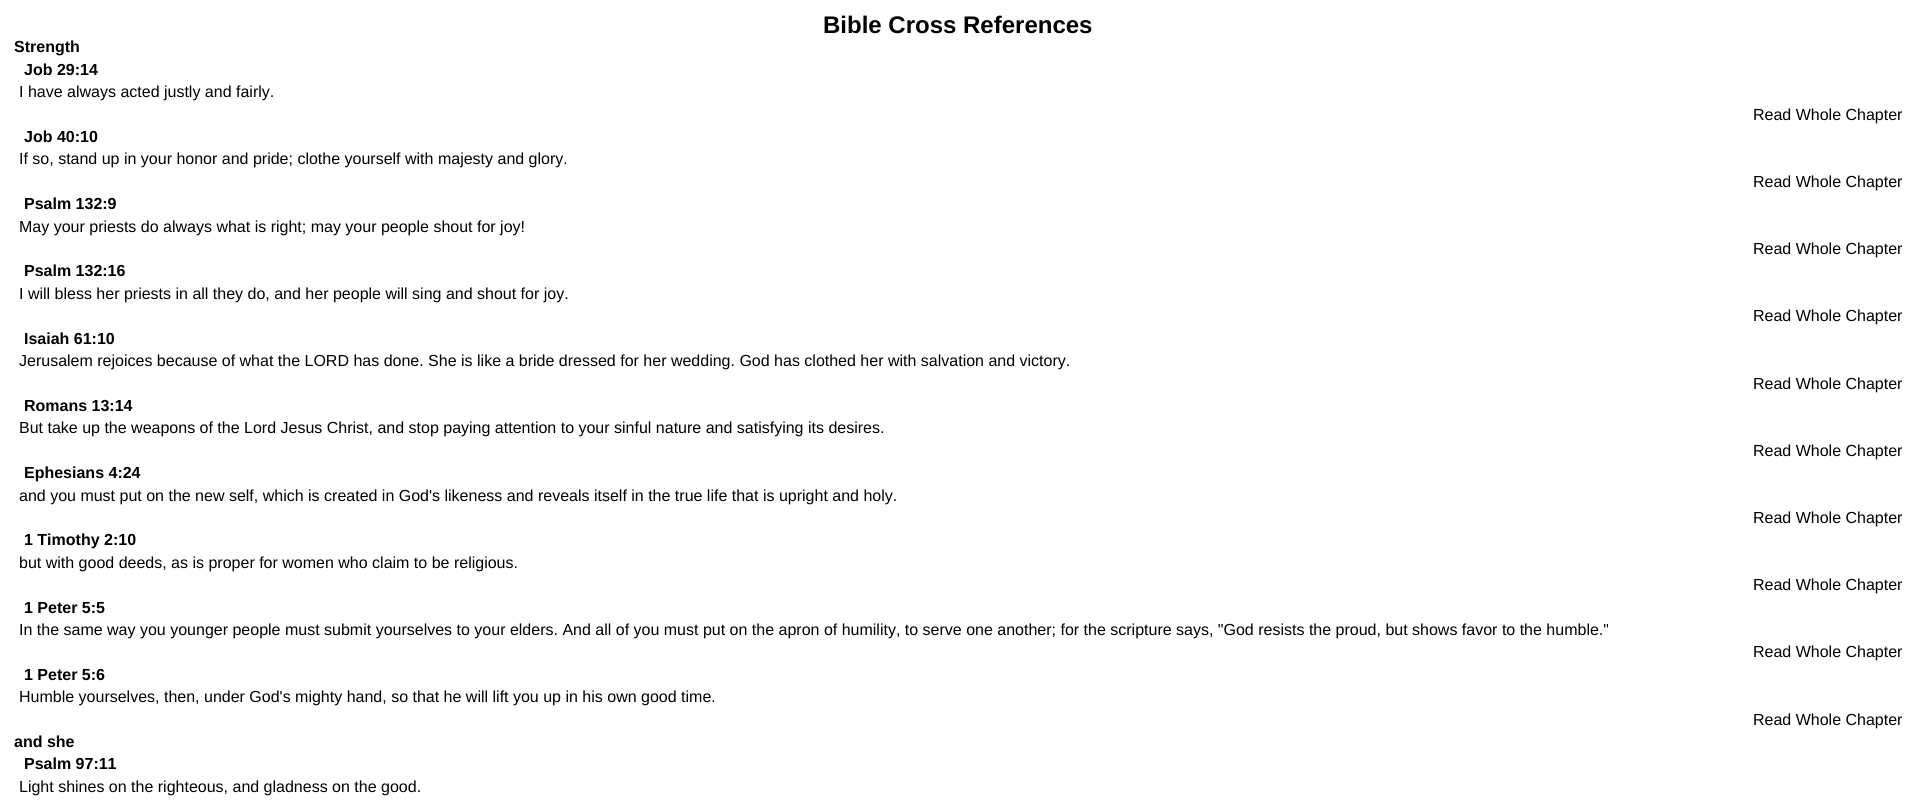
#include <cairo.h>
#include <math.h>
#include <stddef.h>


static void set_color(cairo_t *cr, unsigned color) {
    cairo_set_source_rgb(cr, (color >> 16) / 255.0, (color >> 8 & 255) / 255.0, (color & 255) / 255.0);
}

static void draw_text(cairo_t *cr, double x, double y, const char *s, const char *family, double size, int italic, int bold, unsigned color) {
    cairo_select_font_face(cr, family, italic ? CAIRO_FONT_SLANT_ITALIC : CAIRO_FONT_SLANT_NORMAL,
        bold ? CAIRO_FONT_WEIGHT_BOLD : CAIRO_FONT_WEIGHT_NORMAL);
    cairo_set_font_size(cr, size);
    set_color(cr, color);
    cairo_move_to(cr, x, y);
    cairo_show_text(cr, s);
}

int main(void) {
    cairo_surface_t *surface = cairo_image_surface_create(CAIRO_FORMAT_RGB24, 1916, 810);
    cairo_t *cr = cairo_create(surface);
    cairo_font_options_t *options = cairo_font_options_create();
    cairo_font_options_set_hint_metrics(options, CAIRO_HINT_METRICS_OFF);
    cairo_font_options_set_hint_style(options, CAIRO_HINT_STYLE_NONE);
    cairo_set_font_options(cr, options);
    cairo_set_miter_limit(cr, 4);
    set_color(cr, 0xFFFFFF);
    cairo_paint(cr);
    draw_text(cr, 823, 33, "Bible Cross References", "Liberation Sans", 24, 0, 1, 0x000000);
    draw_text(cr, 14, 52, "Strength", "Liberation Sans", 16, 0, 1, 0x000000);
    draw_text(cr, 24, 75, "Job 29:14", "Liberation Sans", 16, 0, 1, 0x000000);
    draw_text(cr, 19, 97, "I have always acted justly and fairly.", "Liberation Sans", 16, 0, 0, 0x000000);
    draw_text(cr, 1753, 120, "Read Whole Chapter", "Liberation Sans", 16, 0, 0, 0x000000);
    draw_text(cr, 24, 142, "Job 40:10", "Liberation Sans", 16, 0, 1, 0x000000);
    draw_text(cr, 19, 164, "If so, stand up in your honor and pride; clothe yourself with majesty and glory.", "Liberation Sans", 16, 0, 0, 0x000000);
    draw_text(cr, 1753, 187, "Read Whole Chapter", "Liberation Sans", 16, 0, 0, 0x000000);
    draw_text(cr, 24, 209, "Psalm 132:9", "Liberation Sans", 16, 0, 1, 0x000000);
    draw_text(cr, 19, 232, "May your priests do always what is right; may your people shout for joy!", "Liberation Sans", 16, 0, 0, 0x000000);
    draw_text(cr, 1753, 254, "Read Whole Chapter", "Liberation Sans", 16, 0, 0, 0x000000);
    draw_text(cr, 24, 276, "Psalm 132:16", "Liberation Sans", 16, 0, 1, 0x000000);
    draw_text(cr, 19, 299, "I will bless her priests in all they do, and her people will sing and shout for joy.", "Liberation Sans", 16, 0, 0, 0x000000);
    draw_text(cr, 1753, 321, "Read Whole Chapter", "Liberation Sans", 16, 0, 0, 0x000000);
    draw_text(cr, 24, 344, "Isaiah 61:10", "Liberation Sans", 16, 0, 1, 0x000000);
    draw_text(cr, 19, 366, "Jerusalem rejoices because of what the LORD has done. She is like a bride dressed for her wedding. God has clothed her with salvation and victory.", "Liberation Sans", 16, 0, 0, 0x000000);
    draw_text(cr, 1753, 389, "Read Whole Chapter", "Liberation Sans", 16, 0, 0, 0x000000);
    draw_text(cr, 24, 411, "Romans 13:14", "Liberation Sans", 16, 0, 1, 0x000000);
    draw_text(cr, 19, 433, "But take up the weapons of the Lord Jesus Christ, and stop paying attention to your sinful nature and satisfying its desires.", "Liberation Sans", 16, 0, 0, 0x000000);
    draw_text(cr, 1753, 456, "Read Whole Chapter", "Liberation Sans", 16, 0, 0, 0x000000);
    draw_text(cr, 24, 478, "Ephesians 4:24", "Liberation Sans", 16, 0, 1, 0x000000);
    draw_text(cr, 19, 501, "and you must put on the new self, which is created in God's likeness and reveals itself in the true life that is upright and holy.", "Liberation Sans", 16, 0, 0, 0x000000);
    draw_text(cr, 1753, 523, "Read Whole Chapter", "Liberation Sans", 16, 0, 0, 0x000000);
    draw_text(cr, 24, 545, "1 Timothy 2:10", "Liberation Sans", 16, 0, 1, 0x000000);
    draw_text(cr, 19, 568, "but with good deeds, as is proper for women who claim to be religious.", "Liberation Sans", 16, 0, 0, 0x000000);
    draw_text(cr, 1753, 590, "Read Whole Chapter", "Liberation Sans", 16, 0, 0, 0x000000);
    draw_text(cr, 24, 613, "1 Peter 5:5", "Liberation Sans", 16, 0, 1, 0x000000);
    draw_text(cr, 19, 635, "In the same way you younger people must submit yourselves to your elders. And all of you must put on the apron of humility, to serve one another; for the scripture says, \"God resists the proud, but shows favor to the humble.\"", "Liberation Sans", 16, 0, 0, 0x000000);
    draw_text(cr, 1753, 657, "Read Whole Chapter", "Liberation Sans", 16, 0, 0, 0x000000);
    draw_text(cr, 24, 680, "1 Peter 5:6", "Liberation Sans", 16, 0, 1, 0x000000);
    draw_text(cr, 19, 702, "Humble yourselves, then, under God's mighty hand, so that he will lift you up in his own good time.", "Liberation Sans", 16, 0, 0, 0x000000);
    draw_text(cr, 1753, 725, "Read Whole Chapter", "Liberation Sans", 16, 0, 0, 0x000000);
    draw_text(cr, 14, 747, "and she", "Liberation Sans", 16, 0, 1, 0x000000);
    draw_text(cr, 24, 769, "Psalm 97:11", "Liberation Sans", 16, 0, 1, 0x000000);
    draw_text(cr, 19, 792, "Light shines on the righteous, and gladness on the good.", "Liberation Sans", 16, 0, 0, 0x000000);
    cairo_surface_write_to_png(surface, "output.png");
    cairo_font_options_destroy(options);
    cairo_destroy(cr);
    cairo_surface_destroy(surface);
    return 0;
}
